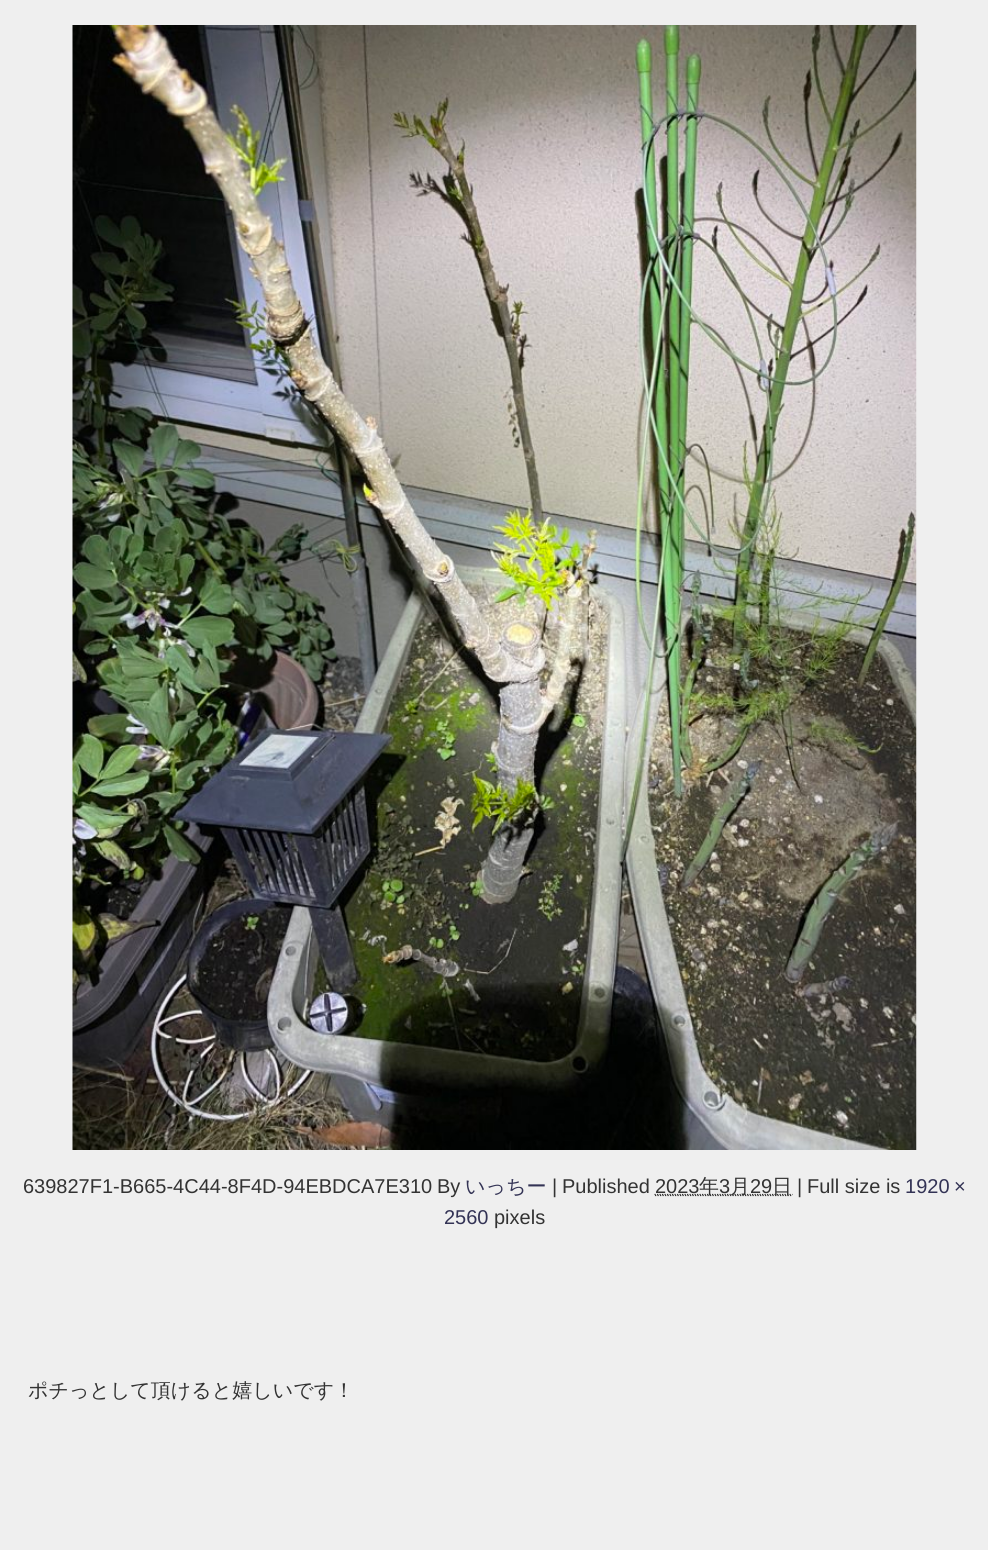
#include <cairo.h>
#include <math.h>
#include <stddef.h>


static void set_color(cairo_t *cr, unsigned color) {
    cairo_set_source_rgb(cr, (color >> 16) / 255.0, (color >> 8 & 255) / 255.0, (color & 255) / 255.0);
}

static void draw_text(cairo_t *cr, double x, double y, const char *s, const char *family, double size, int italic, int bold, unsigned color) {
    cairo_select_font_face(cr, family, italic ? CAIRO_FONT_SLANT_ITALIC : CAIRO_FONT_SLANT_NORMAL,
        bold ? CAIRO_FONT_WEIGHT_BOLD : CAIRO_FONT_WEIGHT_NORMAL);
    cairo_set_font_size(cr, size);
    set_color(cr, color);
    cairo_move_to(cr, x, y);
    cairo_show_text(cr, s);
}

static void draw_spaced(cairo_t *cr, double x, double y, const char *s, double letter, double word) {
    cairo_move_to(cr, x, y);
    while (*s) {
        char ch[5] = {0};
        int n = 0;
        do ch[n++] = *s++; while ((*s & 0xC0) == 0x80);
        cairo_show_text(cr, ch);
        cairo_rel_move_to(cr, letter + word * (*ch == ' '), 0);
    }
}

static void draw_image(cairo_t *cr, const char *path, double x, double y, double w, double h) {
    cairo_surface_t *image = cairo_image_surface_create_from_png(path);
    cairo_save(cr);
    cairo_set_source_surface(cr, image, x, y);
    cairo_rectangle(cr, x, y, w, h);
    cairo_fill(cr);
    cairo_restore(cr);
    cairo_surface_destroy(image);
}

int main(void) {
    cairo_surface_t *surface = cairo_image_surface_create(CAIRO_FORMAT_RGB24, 988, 1550);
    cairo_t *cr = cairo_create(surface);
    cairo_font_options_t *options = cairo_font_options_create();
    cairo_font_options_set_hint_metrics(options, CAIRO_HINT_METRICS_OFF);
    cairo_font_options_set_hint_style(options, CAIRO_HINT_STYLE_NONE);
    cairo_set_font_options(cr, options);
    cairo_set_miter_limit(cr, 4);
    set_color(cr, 0xEFEFEF);
    cairo_paint(cr);
    draw_image(cr, "assets/img1.png", 72, 25, 845, 1125);
    draw_text(cr, 23, 1193, "639827F1-B665-4C44-8F4D-94EBDCA7E310", "Liberation Sans", 20, 0, 0, 0x333333);
    draw_text(cr, 437, 1193, "By", "Liberation Sans", 20, 0, 0, 0x333333);
    draw_text(cr, 465, 1193, "いっちー", "WenQuanYi Zen Hei Medium", 20, 0, 0, 0x333355);
    draw_text(cr, 552, 1193, "|", "Liberation Sans", 20, 0, 0, 0x333333);
    draw_text(cr, 562, 1193, "Published", "Liberation Sans", 20, 0, 0, 0x333333);
    cairo_new_path(cr);
    cairo_move_to(cr, 655, 1195.5);
    cairo_line_to(cr, 792.5, 1195.5);
    cairo_set_line_width(cr, 1.2);
    cairo_set_dash(cr, (double[]){1.25, 1.25}, 2, 0);
    cairo_stroke(cr);
    cairo_new_path(cr);
    cairo_move_to(cr, 654.5, 1194.5);
    cairo_line_to(cr, 792.5, 1194.5);
    cairo_stroke(cr);
    draw_text(cr, 655, 1193, "2023", "Liberation Sans", 20, 0, 0, 0x333333);
    draw_text(cr, 699, 1193, "年", "WenQuanYi Zen Hei Medium", 20, 0, 0, 0x333333);
    draw_text(cr, 719, 1193, "3", "Liberation Sans", 20, 0, 0, 0x333333);
    draw_text(cr, 730, 1193, "月", "WenQuanYi Zen Hei Medium", 20, 0, 0, 0x333333);
    draw_text(cr, 750, 1193, "29", "Liberation Sans", 20, 0, 0, 0x333333);
    draw_text(cr, 772, 1193, "日", "WenQuanYi Zen Hei Medium", 20, 0, 0, 0x333333);
    draw_text(cr, 797, 1193, "|", "Liberation Sans", 20, 0, 0, 0x333333);
    draw_text(cr, 807, 1193, "Full size is", "Liberation Sans", 20, 0, 0, 0x333333);
    set_color(cr, 0x333355);
    draw_spaced(cr, 905, 1193, "1920 ×", 0, -1);
    draw_text(cr, 444, 1224, "2560", "Liberation Sans", 20, 0, 0, 0x333355);
    draw_text(cr, 494, 1224, "pixels", "Liberation Sans", 20, 0, 0, 0x333333);
    draw_text(cr, 28, 1397, "ポチっとして頂けると嬉しいです！", "WenQuanYi Zen Hei Medium", 20, 0, 0, 0x333333);
    cairo_surface_write_to_png(surface, "output.png");
    cairo_font_options_destroy(options);
    cairo_destroy(cr);
    cairo_surface_destroy(surface);
    return 0;
}
